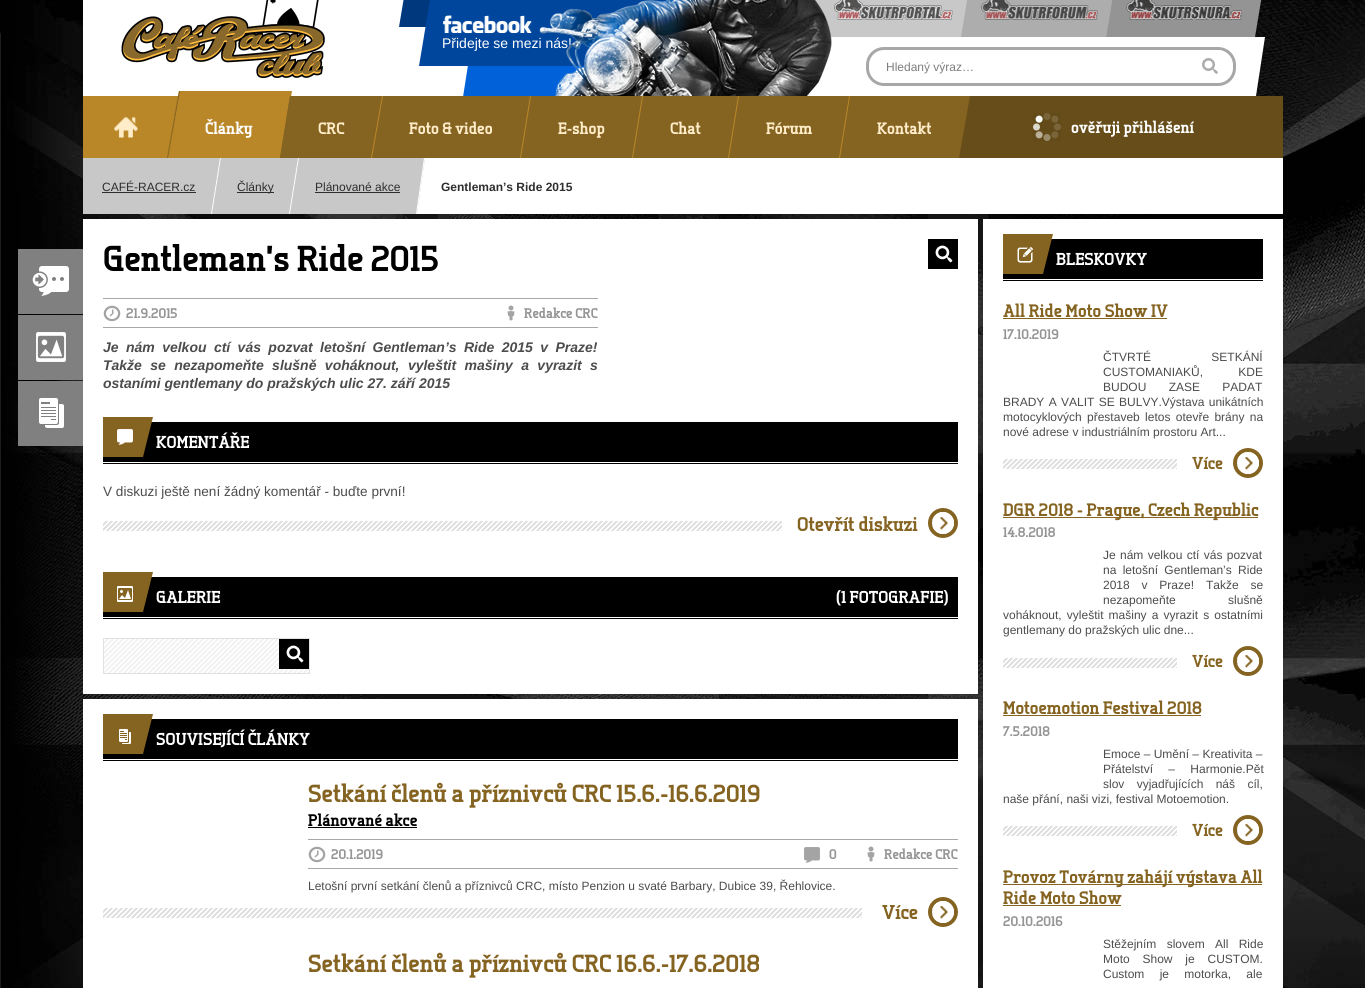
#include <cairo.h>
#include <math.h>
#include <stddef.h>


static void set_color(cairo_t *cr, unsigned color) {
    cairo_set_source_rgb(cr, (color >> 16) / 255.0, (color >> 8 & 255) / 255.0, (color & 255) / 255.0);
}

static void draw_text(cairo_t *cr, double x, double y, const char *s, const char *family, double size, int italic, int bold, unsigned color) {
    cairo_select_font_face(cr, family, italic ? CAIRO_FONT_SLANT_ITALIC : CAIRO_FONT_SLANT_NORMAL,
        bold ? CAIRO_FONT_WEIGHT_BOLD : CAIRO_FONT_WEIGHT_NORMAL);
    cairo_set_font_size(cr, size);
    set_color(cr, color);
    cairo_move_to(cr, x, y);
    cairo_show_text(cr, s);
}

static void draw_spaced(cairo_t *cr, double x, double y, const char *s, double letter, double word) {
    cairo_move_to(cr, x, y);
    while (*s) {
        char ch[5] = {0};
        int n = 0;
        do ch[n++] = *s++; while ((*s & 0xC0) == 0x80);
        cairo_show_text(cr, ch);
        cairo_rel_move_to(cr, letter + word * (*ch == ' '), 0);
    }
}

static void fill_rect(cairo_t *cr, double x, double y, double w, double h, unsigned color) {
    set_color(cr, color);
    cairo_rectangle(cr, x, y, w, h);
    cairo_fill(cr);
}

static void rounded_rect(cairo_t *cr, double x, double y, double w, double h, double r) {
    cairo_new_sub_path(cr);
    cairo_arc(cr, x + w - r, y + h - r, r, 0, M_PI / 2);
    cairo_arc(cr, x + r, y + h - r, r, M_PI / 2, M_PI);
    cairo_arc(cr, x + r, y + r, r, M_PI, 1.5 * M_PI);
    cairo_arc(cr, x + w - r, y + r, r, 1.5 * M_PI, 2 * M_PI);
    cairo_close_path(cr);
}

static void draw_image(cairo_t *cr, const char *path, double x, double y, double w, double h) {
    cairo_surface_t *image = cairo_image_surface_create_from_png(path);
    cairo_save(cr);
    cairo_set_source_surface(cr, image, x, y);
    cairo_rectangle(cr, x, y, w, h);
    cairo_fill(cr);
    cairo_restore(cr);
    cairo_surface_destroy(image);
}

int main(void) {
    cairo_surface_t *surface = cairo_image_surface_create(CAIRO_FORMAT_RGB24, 1365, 988);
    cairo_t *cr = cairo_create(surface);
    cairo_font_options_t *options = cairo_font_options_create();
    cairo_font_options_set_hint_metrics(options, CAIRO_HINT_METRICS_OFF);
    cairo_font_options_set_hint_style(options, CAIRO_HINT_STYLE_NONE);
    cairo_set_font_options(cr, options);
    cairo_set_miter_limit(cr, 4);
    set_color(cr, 0xFFFFFF);
    cairo_paint(cr);
    draw_image(cr, "assets/img1.png", 0, 0, 1365, 988);
    fill_rect(cr, 83, 0, 385, 96, 0xFFFFFF);
    draw_image(cr, "assets/img2.png", 121, 0, 204, 79);
    set_color(cr, 0x00387D);
    cairo_new_path(cr);
    cairo_move_to(cr, 410, -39);
    cairo_line_to(cr, 776, -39);
    cairo_line_to(cr, 765, 27);
    cairo_line_to(cr, 399, 27);
    cairo_close_path(cr);
    cairo_fill(cr);
    fill_rect(cr, 815, 0, 298, 37, 0xC8C8C8);
    set_color(cr, 0x0061D9);
    cairo_new_path(cr);
    cairo_move_to(cr, 474, 27);
    cairo_line_to(cr, 700, 27);
    cairo_line_to(cr, 689, 97);
    cairo_line_to(cr, 463, 97);
    cairo_close_path(cr);
    cairo_fill(cr);
    set_color(cr, 0x00469D);
    cairo_new_path(cr);
    cairo_move_to(cr, 430, 0);
    cairo_line_to(cr, 722, 0);
    cairo_line_to(cr, 711, 66);
    cairo_line_to(cr, 419, 66);
    cairo_close_path(cr);
    cairo_fill(cr);
    draw_text(cr, 442, 48, "Přidejte se mezi nás!", "Liberation Sans", 14, 0, 0, 0xFFFFFF);
    cairo_new_path(cr);
    cairo_move_to(cr, 765, 37);
    cairo_line_to(cr, 1265, 37);
    cairo_line_to(cr, 1256, 96);
    cairo_line_to(cr, 756, 96);
    cairo_close_path(cr);
    cairo_fill(cr);
    draw_image(cr, "assets/img3.png", 539, 0, 293, 96);
    draw_image(cr, "assets/img4.png", 834, 0, 119, 20);
    set_color(cr, 0xADADAD);
    cairo_new_path(cr);
    cairo_move_to(cr, 972, -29);
    cairo_line_to(cr, 1117, -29);
    cairo_line_to(cr, 1106, 37);
    cairo_line_to(cr, 961, 37);
    cairo_close_path(cr);
    cairo_fill(cr);
    draw_image(cr, "assets/img5.png", 981, 0, 117, 20);
    set_color(cr, 0x949494);
    cairo_new_path(cr);
    cairo_move_to(cr, 1117, -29);
    cairo_line_to(cr, 1266, -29);
    cairo_line_to(cr, 1255, 37);
    cairo_line_to(cr, 1106, 37);
    cairo_close_path(cr);
    cairo_fill(cr);
    draw_image(cr, "assets/img6.png", 1126, 0, 116, 20);
    draw_image(cr, "assets/img7.png", 443, 15, 89, 19);
    rounded_rect(cr, 867.5, 48.5, 367, 36, 16.5);
    set_color(cr, 0xA7A7A7);
    cairo_set_line_width(cr, 3);
    cairo_stroke(cr);
    draw_text(cr, 886, 71, "Hledaný výraz…", "Liberation Sans", 12, 0, 0, 0x7D7D7D);
    rounded_rect(cr, 1195, 53, 30, 24, 7);
    set_color(cr, 0xFFFFFF);
    cairo_set_line_width(cr, 6);
    cairo_stroke(cr);
    draw_image(cr, "assets/img8.png", 1202, 58, 16, 16);
    fill_rect(cr, 167, 96, 1116, 62, 0x664D19);
    set_color(cr, 0xB98728);
    cairo_new_path(cr);
    cairo_move_to(cr, 179, 91);
    cairo_line_to(cr, 292, 91);
    cairo_line_to(cr, 281, 158);
    cairo_line_to(cr, 167, 158);
    cairo_close_path(cr);
    cairo_fill(cr);
    set_color(cr, 0x856321);
    cairo_new_path(cr);
    cairo_move_to(cr, 179, 91);
    cairo_line_to(cr, 180, 91);
    cairo_line_to(cr, 168, 158);
    cairo_line_to(cr, 167, 158);
    cairo_close_path(cr);
    cairo_fill(cr);
    cairo_save(cr);
    cairo_rectangle(cr, 83, 91, 1200, 355);
    cairo_clip(cr);
    set_color(cr, 0xB98728);
    cairo_new_path(cr);
    cairo_move_to(cr, 88, 96);
    cairo_line_to(cr, 178, 96);
    cairo_line_to(cr, 167, 158);
    cairo_line_to(cr, 77, 158);
    cairo_close_path(cr);
    cairo_fill(cr);
    cairo_restore(cr);
    fill_rect(cr, 83, 96, 5, 28, 0xB98728);
    draw_image(cr, "assets/img9.png", 113, 117, 25, 21);
    draw_text(cr, 205, 134, "Články", "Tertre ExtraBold", 16.5, 0, 0, 0xFFFFFF);
    set_color(cr, 0x856321);
    cairo_new_path(cr);
    cairo_move_to(cr, 290, 96);
    cairo_line_to(cr, 383, 96);
    cairo_line_to(cr, 372, 158);
    cairo_line_to(cr, 280, 158);
    cairo_close_path(cr);
    cairo_fill(cr);
    cairo_new_path(cr);
    cairo_move_to(cr, 290, 96);
    cairo_line_to(cr, 291, 96);
    cairo_line_to(cr, 281, 158);
    cairo_line_to(cr, 280, 158);
    cairo_close_path(cr);
    cairo_fill(cr);
    draw_text(cr, 318, 134, "CRC", "Tertre ExtraBold", 16.5, 0, 0, 0xFFECC8);
    set_color(cr, 0x856321);
    cairo_new_path(cr);
    cairo_move_to(cr, 382, 96);
    cairo_line_to(cr, 531, 96);
    cairo_line_to(cr, 521, 158);
    cairo_line_to(cr, 371, 158);
    cairo_close_path(cr);
    cairo_fill(cr);
    set_color(cr, 0xB98728);
    cairo_new_path(cr);
    cairo_move_to(cr, 382, 96);
    cairo_line_to(cr, 383, 96);
    cairo_line_to(cr, 372, 158);
    cairo_line_to(cr, 371, 158);
    cairo_close_path(cr);
    cairo_fill(cr);
    draw_text(cr, 409, 134, "Foto & video", "Tertre ExtraBold", 16.5, 0, 0, 0xFFECC8);
    set_color(cr, 0x856321);
    cairo_new_path(cr);
    cairo_move_to(cr, 530, 96);
    cairo_line_to(cr, 643, 96);
    cairo_line_to(cr, 633, 158);
    cairo_line_to(cr, 520, 158);
    cairo_close_path(cr);
    cairo_fill(cr);
    set_color(cr, 0xB98728);
    cairo_new_path(cr);
    cairo_move_to(cr, 530, 96);
    cairo_line_to(cr, 531, 96);
    cairo_line_to(cr, 521, 158);
    cairo_line_to(cr, 520, 158);
    cairo_close_path(cr);
    cairo_fill(cr);
    draw_text(cr, 558, 134, "E-shop", "Tertre ExtraBold", 16.5, 0, 0, 0xFFECC8);
    set_color(cr, 0x856321);
    cairo_new_path(cr);
    cairo_move_to(cr, 642, 96);
    cairo_line_to(cr, 739, 96);
    cairo_line_to(cr, 729, 158);
    cairo_line_to(cr, 632, 158);
    cairo_close_path(cr);
    cairo_fill(cr);
    set_color(cr, 0xB98728);
    cairo_new_path(cr);
    cairo_move_to(cr, 642, 96);
    cairo_line_to(cr, 643, 96);
    cairo_line_to(cr, 633, 158);
    cairo_line_to(cr, 632, 158);
    cairo_close_path(cr);
    cairo_fill(cr);
    draw_text(cr, 670, 134, "Chat", "Tertre ExtraBold", 16.5, 0, 0, 0xFFECC8);
    set_color(cr, 0x856321);
    cairo_new_path(cr);
    cairo_move_to(cr, 738, 96);
    cairo_line_to(cr, 850, 96);
    cairo_line_to(cr, 840, 158);
    cairo_line_to(cr, 728, 158);
    cairo_close_path(cr);
    cairo_fill(cr);
    set_color(cr, 0xB98728);
    cairo_new_path(cr);
    cairo_move_to(cr, 738, 96);
    cairo_line_to(cr, 739, 96);
    cairo_line_to(cr, 729, 158);
    cairo_line_to(cr, 728, 158);
    cairo_close_path(cr);
    cairo_fill(cr);
    draw_text(cr, 766, 134, "Fórum", "Tertre ExtraBold", 16.5, 0, 0, 0xFFECC8);
    set_color(cr, 0x856321);
    cairo_new_path(cr);
    cairo_move_to(cr, 849, 96);
    cairo_line_to(cr, 970, 96);
    cairo_line_to(cr, 959, 158);
    cairo_line_to(cr, 839, 158);
    cairo_close_path(cr);
    cairo_fill(cr);
    set_color(cr, 0xB98728);
    cairo_new_path(cr);
    cairo_move_to(cr, 849, 96);
    cairo_line_to(cr, 850, 96);
    cairo_line_to(cr, 840, 158);
    cairo_line_to(cr, 839, 158);
    cairo_close_path(cr);
    cairo_fill(cr);
    draw_text(cr, 877, 134, "Kontakt", "Tertre ExtraBold", 16.5, 0, 0, 0xFFECC8);
    draw_image(cr, "assets/img10.png", 1033, 113, 28, 28);
    draw_text(cr, 1071, 133, "ověřuji přihlášení", "Tertre ExtraBold", 16.5, 0, 0, 0xFFFFFF);
    fill_rect(cr, 212, 158, 1071, 56, 0xFFFFFF);
    cairo_save(cr);
    cairo_rectangle(cr, 83, 158, 1200, 56);
    cairo_clip(cr);
    set_color(cr, 0xC8C8C8);
    cairo_new_path(cr);
    cairo_move_to(cr, 82, 158);
    cairo_line_to(cr, 221, 158);
    cairo_line_to(cr, 212, 214);
    cairo_line_to(cr, 73, 214);
    cairo_close_path(cr);
    cairo_fill(cr);
    cairo_restore(cr);
    draw_text(cr, 102, 191, "CAFÉ-RACER.cz", "Liberation Sans", 12, 0, 0, 0x2E2E2E);
    fill_rect(cr, 102, 192, 94, 1, 0x2E2E2E);
    set_color(cr, 0xFFFFFF);
    cairo_new_path(cr);
    cairo_move_to(cr, 220, 158);
    cairo_line_to(cr, 211, 214);
    cairo_line_to(cr, 212, 214);
    cairo_line_to(cr, 221, 158);
    cairo_close_path(cr);
    cairo_fill(cr);
    set_color(cr, 0xC8C8C8);
    cairo_new_path(cr);
    cairo_move_to(cr, 221, 158);
    cairo_line_to(cr, 299, 158);
    cairo_line_to(cr, 290, 214);
    cairo_line_to(cr, 212, 214);
    cairo_close_path(cr);
    cairo_fill(cr);
    fill_rect(cr, 237, 192, 37, 1, 0x2E2E2E);
    draw_text(cr, 237, 191, "Články", "Liberation Sans", 12, 0, 0, 0x2E2E2E);
    set_color(cr, 0xFFFFFF);
    cairo_new_path(cr);
    cairo_move_to(cr, 298, 158);
    cairo_line_to(cr, 289, 214);
    cairo_line_to(cr, 290, 214);
    cairo_line_to(cr, 299, 158);
    cairo_close_path(cr);
    cairo_fill(cr);
    set_color(cr, 0xC8C8C8);
    cairo_new_path(cr);
    cairo_move_to(cr, 299, 158);
    cairo_line_to(cr, 425, 158);
    cairo_line_to(cr, 417, 214);
    cairo_line_to(cr, 290, 214);
    cairo_close_path(cr);
    cairo_fill(cr);
    set_color(cr, 0xFFFFFF);
    cairo_new_path(cr);
    cairo_move_to(cr, 424, 158);
    cairo_line_to(cr, 425, 158);
    cairo_line_to(cr, 417, 214);
    cairo_line_to(cr, 416, 214);
    cairo_close_path(cr);
    cairo_fill(cr);
    draw_text(cr, 315, 191, "Plánované akce", "Liberation Sans", 12, 0, 0, 0x2E2E2E);
    fill_rect(cr, 315, 192, 85, 1, 0x2E2E2E);
    draw_text(cr, 441, 191, "Gentleman’s Ride 2015", "Liberation Sans", 12, 0, 1, 0x2E2E2E);
    fill_rect(cr, 18, 249, 65, 65, 0x808080);
    draw_image(cr, "assets/img11.png", 32, 266, 37, 30);
    fill_rect(cr, 18, 315, 65, 65, 0x808080);
    draw_image(cr, "assets/img12.png", 36, 332, 30, 30);
    fill_rect(cr, 18, 381, 65, 65, 0x808080);
    draw_image(cr, "assets/img13.png", 39, 398, 25, 30);
    fill_rect(cr, 83, 219, 895, 475, 0xFFFFFF);
    draw_text(cr, 103, 271, "Gentleman’s Ride 2015", "Tertre ExtraBold", 36, 0, 0, 0x000000);
    fill_rect(cr, 103, 298, 495, 1, 0xA7A7A7);
    fill_rect(cr, 103, 327, 495, 1, 0xA7A7A7);
    draw_image(cr, "assets/img14.png", 103, 305, 18, 17);
    draw_text(cr, 126, 318, "21.9.2015", "Tertre ExtraBold", 14, 0, 0, 0x959595);
    draw_image(cr, "assets/img15.png", 507, 305, 8, 16);
    draw_text(cr, 524, 318, "Redakce CRC", "Tertre ExtraBold", 14, 0, 0, 0x959595);
    cairo_select_font_face(cr, "Liberation Sans", CAIRO_FONT_SLANT_ITALIC, CAIRO_FONT_WEIGHT_BOLD);
    set_color(cr, 0x4C4C4C);
    draw_spaced(cr, 103, 352, "Je nám velkou ctí vás pozvat letošní Gentleman’s Ride 2015 v Praze!", 0, 3.5);
    draw_spaced(cr, 103, 370, "Takže se nezapomeňte slušně voháknout, vyleštit mašiny a vyrazit s", 0, 4.5);
    draw_text(cr, 103, 388, "ostaními gentlemany do pražských ulic 27. září 2015", "Liberation Sans", 14, 1, 1, 0x4C4C4C);
    fill_rect(cr, 935, 245, 18, 18, 0x000000);
    draw_image(cr, "assets/img16.png", 935, 245, 18, 18);
    fill_rect(cr, 928, 239, 30, 6, 0x000000);
    fill_rect(cr, 953, 239, 5, 30, 0x000000);
    fill_rect(cr, 928, 263, 30, 6, 0x000000);
    fill_rect(cr, 928, 239, 7, 30, 0x000000);
    fill_rect(cr, 103, 463, 855, 1, 0x000000);
    fill_rect(cr, 103, 422, 855, 40, 0x000000);
    fill_rect(cr, 103, 417, 40, 40, 0x856321);
    draw_image(cr, "assets/img17.png", 117, 429, 16, 16);
    draw_image(cr, "assets/img18.png", 143, 417, 10, 40);
    draw_text(cr, 156, 448, "KOMENTÁŘE", "Tertre ExtraBold", 17.25, 0, 0, 0xFFFFFF);
    draw_text(cr, 103, 496, "V diskuzi ještě není žádný komentář - buďte první!", "Liberation Sans", 13.6, 0, 0, 0x4C4C4C);
    draw_image(cr, "assets/img19.png", 103, 521, 679, 10);
    draw_text(cr, 797, 531, "Otevřít diskuzi", "Tertre ExtraBold", 19.75, 0, 0, 0x856321);
    cairo_new_path(cr);
    cairo_arc(cr, 943, 523, 13, 0, 2 * M_PI);
    cairo_set_line_width(cr, 4);
    cairo_stroke(cr);
    draw_image(cr, "assets/img20.png", 932, 517, 22, 13);
    cairo_arc(cr, 943, 523, 9, 0, 2 * M_PI);
    set_color(cr, 0xFFFFFF);
    cairo_stroke(cr);
    fill_rect(cr, 936, 518, 4, 11, 0xFFFFFF);
    fill_rect(cr, 103, 618, 855, 1, 0x000000);
    fill_rect(cr, 103, 577, 855, 40, 0x000000);
    fill_rect(cr, 103, 572, 40, 40, 0x856321);
    draw_image(cr, "assets/img21.png", 117, 586, 16, 16);
    draw_image(cr, "assets/img18.png", 143, 572, 10, 40);
    draw_text(cr, 156, 603, "GALERIE", "Tertre ExtraBold", 17.25, 0, 0, 0xFFFFFF);
    draw_text(cr, 836, 603, "(1 FOTOGRAFIE)", "Tertre ExtraBold", 17.25, 0, 0, 0xFFFFFF);
    draw_image(cr, "assets/img22.png", 104, 639, 205, 34);
    cairo_rectangle(cr, 103.5, 638.5, 206, 35);
    set_color(cr, 0xE1E1E1);
    cairo_set_line_width(cr, 1);
    cairo_stroke(cr);
    fill_rect(cr, 286, 645, 18, 18, 0x000000);
    draw_image(cr, "assets/img16.png", 286, 645, 18, 18);
    fill_rect(cr, 279, 639, 30, 6, 0x000000);
    fill_rect(cr, 304, 639, 5, 30, 0x000000);
    fill_rect(cr, 279, 663, 30, 6, 0x000000);
    fill_rect(cr, 279, 639, 7, 30, 0x000000);
    fill_rect(cr, 83, 699, 895, 289, 0xFFFFFF);
    fill_rect(cr, 103, 760, 855, 1, 0x000000);
    fill_rect(cr, 103, 719, 855, 40, 0x000000);
    fill_rect(cr, 103, 714, 40, 40, 0x856321);
    draw_image(cr, "assets/img23.png", 119, 729, 12, 15);
    draw_image(cr, "assets/img18.png", 143, 714, 10, 40);
    draw_text(cr, 156, 745, "SOUVISEJÍCÍ ČLÁNKY", "Tertre ExtraBold", 17.25, 0, 0, 0xFFFFFF);
    draw_text(cr, 308, 802, "Setkání členů a příznivců CRC 15.6.-16.6.2019", "Tertre ExtraBold", 24.75, 0, 0, 0x856321);
    draw_text(cr, 308, 826, "Plánované akce", "Tertre ExtraBold", 16.75, 0, 0, 0x000000);
    fill_rect(cr, 308, 827, 109, 1, 0x000000);
    fill_rect(cr, 308, 839, 650, 1, 0xA7A7A7);
    fill_rect(cr, 308, 868, 650, 1, 0xA7A7A7);
    draw_image(cr, "assets/img14.png", 308, 846, 18, 17);
    draw_text(cr, 331, 859, "20.1.2019", "Tertre ExtraBold", 14, 0, 0, 0x959595);
    draw_image(cr, "assets/img24.png", 804, 847, 16, 16);
    draw_text(cr, 829, 859, "0", "Tertre ExtraBold", 14, 0, 0, 0x959595);
    draw_image(cr, "assets/img15.png", 867, 846, 8, 16);
    draw_text(cr, 884, 859, "Redakce CRC", "Tertre ExtraBold", 14, 0, 0, 0x959595);
    draw_text(cr, 308, 890, "Letošní první setkání členů a příznivců CRC, místo Penzion u svaté Barbary, Dubice 39, Řehlovice.", "Liberation Sans", 12, 0, 0, 0x4C4C4C);
    draw_image(cr, "assets/img25.png", 103, 908, 759, 10);
    draw_text(cr, 882, 919, "Více", "Tertre ExtraBold", 20, 0, 0, 0x856321);
    cairo_new_path(cr);
    cairo_arc(cr, 943, 912, 13, 0, 2 * M_PI);
    cairo_set_line_width(cr, 4);
    cairo_stroke(cr);
    draw_image(cr, "assets/img20.png", 932, 906, 22, 13);
    cairo_arc(cr, 943, 912, 9, 0, 2 * M_PI);
    set_color(cr, 0xFFFFFF);
    cairo_stroke(cr);
    fill_rect(cr, 936, 907, 4, 11, 0xFFFFFF);
    draw_text(cr, 308, 972, "Setkání členů a příznivců CRC 16.6.-17.6.2018", "Tertre ExtraBold", 24.75, 0, 0, 0x856321);
    fill_rect(cr, 983, 219, 300, 769, 0xFFFFFF);
    fill_rect(cr, 1003, 280, 260, 1, 0x000000);
    fill_rect(cr, 1003, 239, 260, 40, 0x000000);
    fill_rect(cr, 1003, 234, 40, 40, 0x856321);
    draw_image(cr, "assets/img26.png", 1017, 247, 16, 16);
    draw_image(cr, "assets/img18.png", 1043, 234, 10, 40);
    draw_text(cr, 1056, 265, "BLESKOVKY", "Tertre ExtraBold", 17.25, 0, 0, 0xFFFFFF);
    draw_text(cr, 1003, 317, "All Ride Moto Show IV", "Tertre ExtraBold", 18, 0, 0, 0x856321);
    fill_rect(cr, 1003, 318, 164, 1, 0x856321);
    draw_text(cr, 1003, 339, "17.10.2019", "Tertre ExtraBold", 14, 0, 0, 0x959595);
    cairo_select_font_face(cr, "Liberation Sans", CAIRO_FONT_SLANT_NORMAL, CAIRO_FONT_WEIGHT_NORMAL);
    cairo_set_font_size(cr, 12);
    set_color(cr, 0x4C4C4C);
    draw_spaced(cr, 1103, 361, "ČTVRTÉ SETKÁNÍ", 0, 57);
    draw_spaced(cr, 1103, 376, "CUSTOMANIAKŮ, KDE", 0, 32);
    draw_spaced(cr, 1103, 391, "BUDOU ZASE PADAT", 0, 19);
    draw_spaced(cr, 1003, 406, "BRADY A VALIT SE BULVY.Výstava unikátních", 0, 1);
    draw_spaced(cr, 1003, 421, "motocyklových přestaveb letos otevře brány na", 0, 2);
    draw_text(cr, 1003, 436, "nové adrese v industriálním prostoru Art...", "Liberation Sans", 12, 0, 0, 0x4C4C4C);
    draw_image(cr, "assets/img27.png", 1003, 459, 174, 10);
    draw_text(cr, 1192, 469, "Více", "Tertre ExtraBold", 17.25, 0, 0, 0x856321);
    cairo_new_path(cr);
    cairo_arc(cr, 1248, 463, 13, 0, 2 * M_PI);
    cairo_stroke(cr);
    draw_image(cr, "assets/img20.png", 1237, 457, 22, 13);
    cairo_arc(cr, 1248, 463, 9, 0, 2 * M_PI);
    set_color(cr, 0xFFFFFF);
    cairo_stroke(cr);
    fill_rect(cr, 1241, 458, 4, 11, 0xFFFFFF);
    fill_rect(cr, 1003, 517, 255, 1, 0x856321);
    draw_text(cr, 1003, 516, "DGR 2018 - Prague, Czech Republic", "Tertre ExtraBold", 18, 0, 0, 0x856321);
    draw_text(cr, 1003, 537, "14.8.2018", "Tertre ExtraBold", 14, 0, 0, 0x959595);
    cairo_select_font_face(cr, "Liberation Sans", CAIRO_FONT_SLANT_NORMAL, CAIRO_FONT_WEIGHT_NORMAL);
    cairo_set_font_size(cr, 12);
    set_color(cr, 0x4C4C4C);
    draw_spaced(cr, 1103, 559, "Je nám velkou ctí vás pozvat", 0, 1);
    draw_spaced(cr, 1103, 574, "na letošní Gentleman’s Ride", 0, 3);
    draw_spaced(cr, 1103, 589, "2018 v Praze! Takže se", 0, 8.5);
    draw_spaced(cr, 1103, 604, "nezapomeňte slušně", 0, 49);
    draw_spaced(cr, 1003, 619, "voháknout, vyleštit mašiny a vyrazit s ostatními", 0, 1.75);
    draw_text(cr, 1003, 634, "gentlemany do pražských ulic dne...", "Liberation Sans", 12, 0, 0, 0x4C4C4C);
    draw_image(cr, "assets/img27.png", 1003, 658, 174, 10);
    draw_text(cr, 1192, 667, "Více", "Tertre ExtraBold", 17.25, 0, 0, 0x856321);
    cairo_new_path(cr);
    cairo_arc(cr, 1248, 661, 13, 0, 2 * M_PI);
    cairo_stroke(cr);
    draw_image(cr, "assets/img20.png", 1237, 655, 22, 13);
    cairo_arc(cr, 1248, 661, 9, 0, 2 * M_PI);
    set_color(cr, 0xFFFFFF);
    cairo_stroke(cr);
    fill_rect(cr, 1241, 656, 4, 11, 0xFFFFFF);
    draw_text(cr, 1003, 714, "Motoemotion Festival 2018", "Tertre ExtraBold", 18, 0, 0, 0x856321);
    fill_rect(cr, 1003, 715, 198, 1, 0x856321);
    draw_text(cr, 1003, 736, "7.5.2018", "Tertre ExtraBold", 14, 0, 0, 0x959595);
    draw_text(cr, 1103, 758, "Emoce – Umění – Kreativita –", "Liberation Sans", 12, 0, 0, 0x4C4C4C);
    draw_spaced(cr, 1103, 773, "Přátelství – Harmonie.Pět", 0, 12);
    draw_spaced(cr, 1103, 788, "slov vyjadřujících náš cíl,", 0, 9);
    draw_text(cr, 1003, 803, "naše přání, naši vizi, festival Motoemotion.", "Liberation Sans", 12, 0, 0, 0x4C4C4C);
    draw_image(cr, "assets/img27.png", 1003, 826, 174, 10);
    draw_text(cr, 1192, 836, "Více", "Tertre ExtraBold", 17.25, 0, 0, 0x856321);
    cairo_new_path(cr);
    cairo_arc(cr, 1248, 830, 13, 0, 2 * M_PI);
    cairo_stroke(cr);
    draw_image(cr, "assets/img20.png", 1237, 824, 22, 13);
    cairo_arc(cr, 1248, 830, 9, 0, 2 * M_PI);
    set_color(cr, 0xFFFFFF);
    cairo_stroke(cr);
    fill_rect(cr, 1241, 825, 4, 11, 0xFFFFFF);
    fill_rect(cr, 1003, 884, 259, 1, 0x856321);
    draw_text(cr, 1003, 883, "Provoz Továrny zahájí výstava All", "Tertre ExtraBold", 18, 0, 0, 0x856321);
    draw_text(cr, 1003, 904, "Ride Moto Show", "Tertre ExtraBold", 18, 0, 0, 0x856321);
    fill_rect(cr, 1003, 905, 118, 1, 0x856321);
    draw_text(cr, 1003, 926, "20.10.2016", "Tertre ExtraBold", 14, 0, 0, 0x959595);
    cairo_select_font_face(cr, "Liberation Sans", CAIRO_FONT_SLANT_NORMAL, CAIRO_FONT_WEIGHT_NORMAL);
    cairo_set_font_size(cr, 12);
    set_color(cr, 0x4C4C4C);
    draw_spaced(cr, 1103, 948, "Stěžejním slovem All Ride", 0, 7);
    draw_spaced(cr, 1103, 963, "Moto Show je CUSTOM.", 0, 9.5);
    draw_spaced(cr, 1103, 978, "Custom je motorka, ale", 0, 12);
    cairo_surface_write_to_png(surface, "output.png");
    cairo_font_options_destroy(options);
    cairo_destroy(cr);
    cairo_surface_destroy(surface);
    return 0;
}
